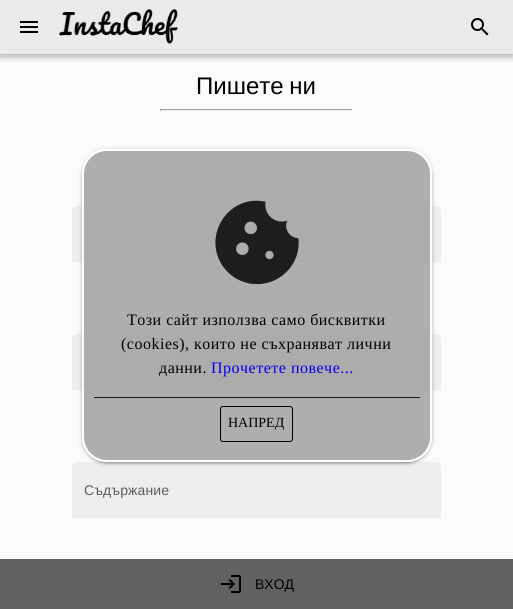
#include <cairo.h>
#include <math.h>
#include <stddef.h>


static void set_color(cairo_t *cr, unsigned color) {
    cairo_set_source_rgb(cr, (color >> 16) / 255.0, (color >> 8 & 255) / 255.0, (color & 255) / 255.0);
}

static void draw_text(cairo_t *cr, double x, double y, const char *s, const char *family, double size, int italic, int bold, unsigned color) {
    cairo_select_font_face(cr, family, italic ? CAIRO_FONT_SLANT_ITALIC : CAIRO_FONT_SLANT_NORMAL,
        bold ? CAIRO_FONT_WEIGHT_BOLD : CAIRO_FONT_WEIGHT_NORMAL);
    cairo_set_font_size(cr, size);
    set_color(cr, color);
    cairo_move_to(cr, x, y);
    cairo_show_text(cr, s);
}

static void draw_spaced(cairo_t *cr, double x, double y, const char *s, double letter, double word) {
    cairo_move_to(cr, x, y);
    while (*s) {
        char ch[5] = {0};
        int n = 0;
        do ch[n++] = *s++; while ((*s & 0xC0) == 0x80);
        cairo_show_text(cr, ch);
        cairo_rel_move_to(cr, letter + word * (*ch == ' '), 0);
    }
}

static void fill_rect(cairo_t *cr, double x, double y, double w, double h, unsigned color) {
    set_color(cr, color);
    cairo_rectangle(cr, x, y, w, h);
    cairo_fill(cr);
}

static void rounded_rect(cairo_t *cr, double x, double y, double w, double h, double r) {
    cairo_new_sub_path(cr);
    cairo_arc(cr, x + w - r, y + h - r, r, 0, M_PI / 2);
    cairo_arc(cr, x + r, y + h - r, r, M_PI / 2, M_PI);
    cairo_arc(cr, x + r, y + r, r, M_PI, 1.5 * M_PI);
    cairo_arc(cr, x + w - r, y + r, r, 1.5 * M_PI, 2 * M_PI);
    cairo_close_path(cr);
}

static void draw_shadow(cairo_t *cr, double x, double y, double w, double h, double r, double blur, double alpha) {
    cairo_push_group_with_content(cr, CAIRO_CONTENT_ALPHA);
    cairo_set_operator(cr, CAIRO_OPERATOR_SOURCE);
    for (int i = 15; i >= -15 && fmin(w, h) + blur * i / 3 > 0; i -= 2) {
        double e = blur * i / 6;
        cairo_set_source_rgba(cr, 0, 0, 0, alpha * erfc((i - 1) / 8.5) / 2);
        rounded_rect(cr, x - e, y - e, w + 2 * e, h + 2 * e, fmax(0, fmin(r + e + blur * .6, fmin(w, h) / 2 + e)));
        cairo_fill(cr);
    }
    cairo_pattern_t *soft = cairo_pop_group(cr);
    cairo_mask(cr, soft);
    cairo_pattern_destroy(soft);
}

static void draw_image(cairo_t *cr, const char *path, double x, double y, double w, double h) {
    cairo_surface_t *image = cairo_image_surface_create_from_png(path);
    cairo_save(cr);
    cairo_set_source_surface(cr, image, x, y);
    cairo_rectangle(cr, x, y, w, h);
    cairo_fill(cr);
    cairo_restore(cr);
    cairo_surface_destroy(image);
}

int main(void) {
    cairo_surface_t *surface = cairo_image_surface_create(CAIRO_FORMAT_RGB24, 513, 609);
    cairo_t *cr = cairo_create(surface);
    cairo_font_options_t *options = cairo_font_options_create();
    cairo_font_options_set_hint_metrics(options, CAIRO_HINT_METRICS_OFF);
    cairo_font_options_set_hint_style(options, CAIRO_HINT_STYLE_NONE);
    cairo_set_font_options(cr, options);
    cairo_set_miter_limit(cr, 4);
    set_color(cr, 0xFBFBFB);
    cairo_paint(cr);
    fill_rect(cr, 0, 0, 513, 54, 0xEBE9E9);
    draw_image(cr, "assets/img1.png", 20, 21, 18, 12);
    draw_image(cr, "assets/img2.png", 59, 9, 119, 35);
    draw_image(cr, "assets/img3.png", 471, 18, 18, 18);
    cairo_save(cr);
    cairo_rectangle(cr, 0, 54, 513, 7);
    cairo_clip(cr);
    set_color(cr, 0x000000);
    draw_shadow(cr, 0, 0, 513, 54, 0, 5, 0.24);
    cairo_restore(cr);
    cairo_save(cr);
    cairo_rectangle(cr, 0, 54, 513, 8);
    cairo_clip(cr);
    set_color(cr, 0x000000);
    draw_shadow(cr, -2, -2, 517, 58, 0, 5, 0.2);
    cairo_restore(cr);
    cairo_select_font_face(cr, "Liberation Sans", CAIRO_FONT_SLANT_NORMAL, CAIRO_FONT_WEIGHT_NORMAL);
    cairo_set_font_size(cr, 24);
    set_color(cr, 0x000000);
    draw_spaced(cr, 196, 94, "Пишете ни", 0, -1);
    fill_rect(cr, 160, 109, 193, 1, 0x9F9F9F);
    fill_rect(cr, 352, 109, 1, 2, 0xEEEEEE);
    fill_rect(cr, 160, 110, 193, 1, 0xEEEEEE);
    fill_rect(cr, 160, 109, 1, 2, 0x9F9F9F);
    set_color(cr, 0xEEEEEE);
    cairo_new_path(cr);
    cairo_move_to(cr, 76, 206);
    cairo_line_to(cr, 437, 206);
    cairo_curve_to(cr, 439, 206, 441, 208, 441, 210);
    cairo_line_to(cr, 441, 262);
    cairo_line_to(cr, 72, 262);
    cairo_line_to(cr, 72, 210);
    cairo_curve_to(cr, 72, 208, 74, 206, 76, 206);
    cairo_close_path(cr);
    cairo_fill(cr);
    cairo_new_path(cr);
    cairo_move_to(cr, 76, 334);
    cairo_line_to(cr, 437, 334);
    cairo_curve_to(cr, 439, 334, 441, 336, 441, 338);
    cairo_line_to(cr, 441, 390);
    cairo_line_to(cr, 72, 390);
    cairo_line_to(cr, 72, 338);
    cairo_curve_to(cr, 72, 336, 74, 334, 76, 334);
    cairo_close_path(cr);
    cairo_fill(cr);
    cairo_new_path(cr);
    cairo_move_to(cr, 76, 462);
    cairo_line_to(cr, 437, 462);
    cairo_curve_to(cr, 439, 462, 441, 464, 441, 466);
    cairo_line_to(cr, 441, 518);
    cairo_line_to(cr, 72, 518);
    cairo_line_to(cr, 72, 466);
    cairo_curve_to(cr, 72, 464, 74, 462, 76, 462);
    cairo_close_path(cr);
    cairo_fill(cr);
    cairo_set_font_size(cr, 14);
    set_color(cr, 0x5D5D5D);
    draw_spaced(cr, 84, 495, "Съдържание", 0.1, 0);
    cairo_save(cr);
    cairo_set_fill_rule(cr, CAIRO_FILL_RULE_EVEN_ODD);
    cairo_new_path(cr);
    cairo_move_to(cr, 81, 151);
    cairo_line_to(cr, 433, 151);
    cairo_line_to(cr, 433, 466);
    cairo_line_to(cr, 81, 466);
    cairo_close_path(cr);
    cairo_move_to(cr, 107, 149);
    cairo_line_to(cr, 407, 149);
    cairo_curve_to(cr, 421, 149, 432, 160, 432, 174);
    cairo_line_to(cr, 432, 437);
    cairo_curve_to(cr, 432, 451, 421, 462, 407, 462);
    cairo_line_to(cr, 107, 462);
    cairo_curve_to(cr, 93, 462, 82, 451, 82, 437);
    cairo_line_to(cr, 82, 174);
    cairo_curve_to(cr, 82, 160, 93, 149, 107, 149);
    cairo_close_path(cr);
    cairo_clip(cr);
    set_color(cr, 0x000000);
    draw_shadow(cr, 84, 154, 346, 309, 23, 0.5, 0.12);
    cairo_restore(cr);
    cairo_save(cr);
    cairo_set_fill_rule(cr, CAIRO_FILL_RULE_EVEN_ODD);
    cairo_new_path(cr);
    cairo_move_to(cr, 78, 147);
    cairo_line_to(cr, 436, 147);
    cairo_line_to(cr, 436, 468);
    cairo_line_to(cr, 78, 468);
    cairo_close_path(cr);
    cairo_move_to(cr, 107, 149);
    cairo_line_to(cr, 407, 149);
    cairo_curve_to(cr, 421, 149, 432, 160, 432, 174);
    cairo_line_to(cr, 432, 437);
    cairo_curve_to(cr, 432, 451, 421, 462, 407, 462);
    cairo_line_to(cr, 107, 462);
    cairo_curve_to(cr, 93, 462, 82, 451, 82, 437);
    cairo_line_to(cr, 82, 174);
    cairo_curve_to(cr, 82, 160, 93, 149, 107, 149);
    cairo_close_path(cr);
    cairo_clip(cr);
    set_color(cr, 0x000000);
    draw_shadow(cr, 82, 151, 350, 313, 25, 1, 0.14);
    cairo_restore(cr);
    cairo_save(cr);
    cairo_set_fill_rule(cr, CAIRO_FILL_RULE_EVEN_ODD);
    cairo_new_path(cr);
    cairo_move_to(cr, 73, 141);
    cairo_line_to(cr, 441, 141);
    cairo_line_to(cr, 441, 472);
    cairo_line_to(cr, 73, 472);
    cairo_close_path(cr);
    cairo_move_to(cr, 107, 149);
    cairo_line_to(cr, 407, 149);
    cairo_curve_to(cr, 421, 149, 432, 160, 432, 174);
    cairo_line_to(cr, 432, 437);
    cairo_curve_to(cr, 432, 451, 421, 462, 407, 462);
    cairo_line_to(cr, 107, 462);
    cairo_curve_to(cr, 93, 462, 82, 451, 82, 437);
    cairo_line_to(cr, 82, 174);
    cairo_curve_to(cr, 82, 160, 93, 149, 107, 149);
    cairo_close_path(cr);
    cairo_clip(cr);
    set_color(cr, 0x000000);
    draw_shadow(cr, 82, 150, 350, 313, 25, 2.5, 0.2);
    cairo_restore(cr);
    cairo_set_source_rgba(cr, 0.635, 0.627, 0.627, 0.85);
    rounded_rect(cr, 83, 150, 348, 311, 24);
    cairo_fill_preserve(cr);
    set_color(cr, 0xFFFFFF);
    cairo_stroke(cr);
    draw_image(cr, "assets/img4.png", 215, 200, 84, 85);
    cairo_select_font_face(cr, "Liberation Serif", CAIRO_FONT_SLANT_NORMAL, CAIRO_FONT_WEIGHT_NORMAL);
    cairo_set_font_size(cr, 16);
    set_color(cr, 0x000000);
    draw_spaced(cr, 127, 325, "Този сайт използва само бисквитки", 0.5, 0);
    draw_spaced(cr, 121, 349, "(cookies), които не съхраняват лични", 0.5, 0);
    draw_spaced(cr, 159, 373, "данни.", 0.5, 0);
    set_color(cr, 0x0000EE);
    draw_spaced(cr, 211, 373, "Прочетете повече...", 0.5, 0);
    fill_rect(cr, 94, 397, 326, 1, 0x1D1D1D);
    rounded_rect(cr, 220.5, 406.5, 72, 35, 2.5);
    set_color(cr, 0x000000);
    cairo_set_line_width(cr, 1);
    cairo_stroke(cr);
    draw_text(cr, 228, 427, "НАПРЕД", "Liberation Serif", 14, 0, 0, 0x000000);
    fill_rect(cr, 0, 559, 513, 50, 0x616161);
    draw_image(cr, "assets/img5.png", 221, 575, 20, 18);
    draw_text(cr, 255, 589, "ВХОД", "Liberation Sans", 14, 0, 0, 0x000000);
    cairo_surface_write_to_png(surface, "output.png");
    cairo_font_options_destroy(options);
    cairo_destroy(cr);
    cairo_surface_destroy(surface);
    return 0;
}
